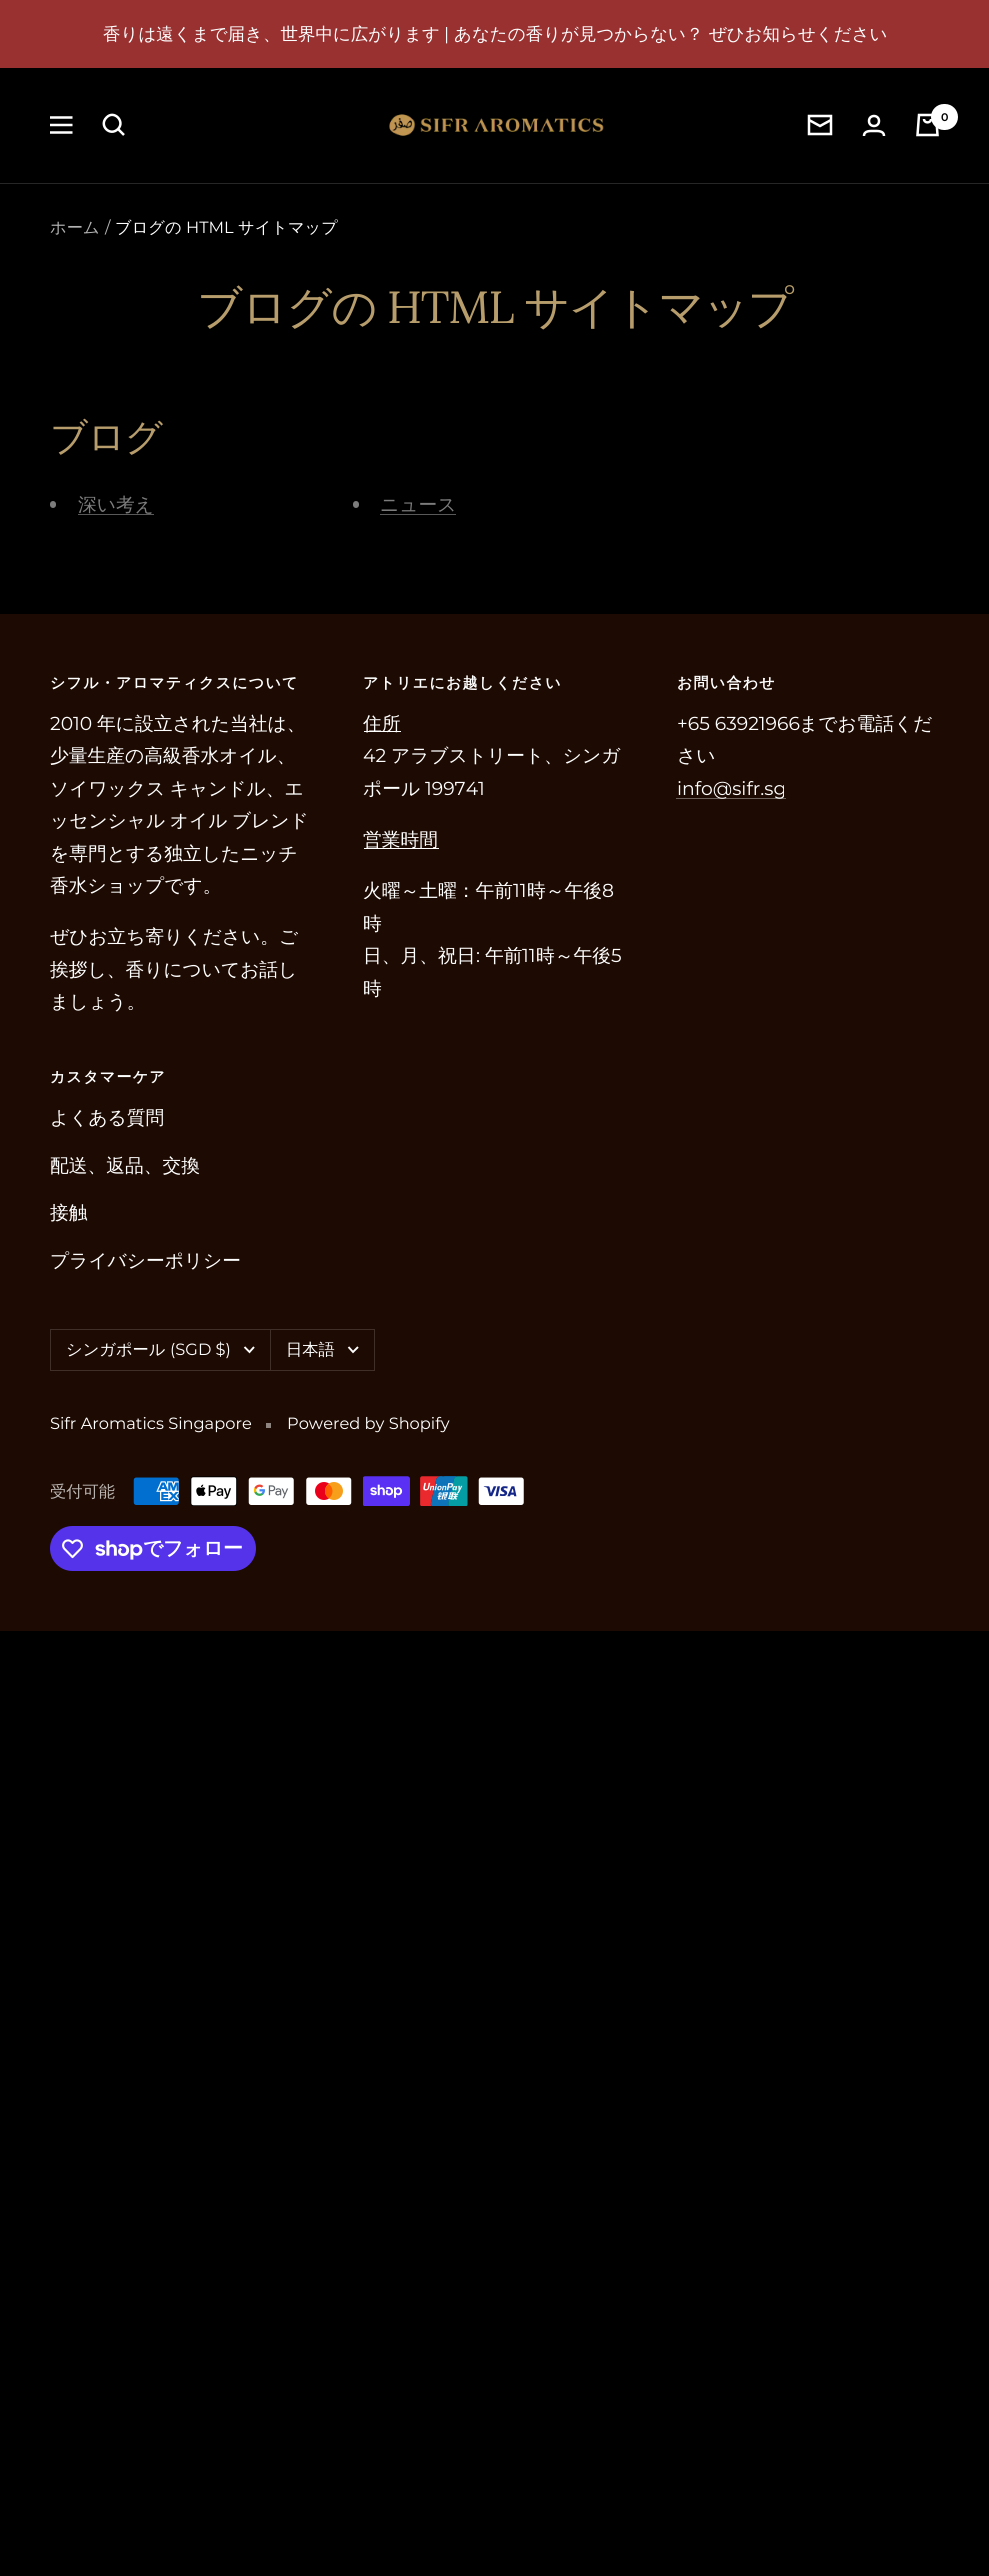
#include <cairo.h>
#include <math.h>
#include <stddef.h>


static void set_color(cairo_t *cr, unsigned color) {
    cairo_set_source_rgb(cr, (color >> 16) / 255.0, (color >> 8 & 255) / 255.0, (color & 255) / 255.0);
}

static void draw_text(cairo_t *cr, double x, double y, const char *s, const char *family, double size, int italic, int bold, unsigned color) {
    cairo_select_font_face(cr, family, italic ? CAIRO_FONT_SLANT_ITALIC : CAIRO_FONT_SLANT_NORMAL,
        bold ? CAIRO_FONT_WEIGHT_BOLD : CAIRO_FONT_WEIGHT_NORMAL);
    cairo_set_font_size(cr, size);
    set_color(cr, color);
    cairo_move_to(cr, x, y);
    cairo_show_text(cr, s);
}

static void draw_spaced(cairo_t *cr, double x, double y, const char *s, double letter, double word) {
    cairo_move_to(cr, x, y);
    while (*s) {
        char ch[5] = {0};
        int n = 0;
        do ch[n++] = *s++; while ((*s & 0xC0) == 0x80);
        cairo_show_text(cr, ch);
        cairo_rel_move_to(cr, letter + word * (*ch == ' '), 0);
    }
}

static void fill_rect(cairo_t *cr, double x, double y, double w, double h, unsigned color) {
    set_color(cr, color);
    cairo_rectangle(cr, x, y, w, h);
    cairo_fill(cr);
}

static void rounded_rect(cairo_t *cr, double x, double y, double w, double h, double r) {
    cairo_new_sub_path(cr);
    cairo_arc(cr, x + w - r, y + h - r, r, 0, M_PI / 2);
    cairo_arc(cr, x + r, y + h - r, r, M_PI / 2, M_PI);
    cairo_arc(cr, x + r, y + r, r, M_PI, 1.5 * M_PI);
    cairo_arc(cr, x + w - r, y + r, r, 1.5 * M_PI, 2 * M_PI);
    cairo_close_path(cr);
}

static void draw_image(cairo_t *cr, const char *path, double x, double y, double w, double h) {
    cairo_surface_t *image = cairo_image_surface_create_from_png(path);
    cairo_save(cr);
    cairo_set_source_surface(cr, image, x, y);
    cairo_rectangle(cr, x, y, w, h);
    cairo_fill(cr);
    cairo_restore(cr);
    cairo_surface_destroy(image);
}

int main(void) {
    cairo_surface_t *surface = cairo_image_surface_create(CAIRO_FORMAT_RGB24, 989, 2576);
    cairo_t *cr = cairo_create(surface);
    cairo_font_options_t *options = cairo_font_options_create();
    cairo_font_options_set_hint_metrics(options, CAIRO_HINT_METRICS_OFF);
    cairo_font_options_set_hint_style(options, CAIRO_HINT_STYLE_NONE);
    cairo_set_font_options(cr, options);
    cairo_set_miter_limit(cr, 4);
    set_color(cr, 0x000000);
    cairo_paint(cr);
    fill_rect(cr, 0, 0, 989, 68, 0x993131);
    draw_text(cr, 103, 40, "香りは遠くまで届き、世界中に広がります", "WenQuanYi Zen Hei Medium", 17.5, 0, 0, 0xFFFFFF);
    draw_text(cr, 444, 40, "|", "Montserrat", 17.5, 0, 0, 0xFFFFFF);
    draw_text(cr, 454, 40, "あなたの香りが見つからない？ ぜひお知らせください", "WenQuanYi Zen Hei Medium", 17.5, 0, 0, 0xFFFFFF);
    fill_rect(cr, 0, 183, 989, 1, 0x262626);
    cairo_new_path(cr);
    cairo_move_to(cr, 50, 117.5);
    cairo_line_to(cr, 72.5, 117.5);
    cairo_move_to(cr, 50, 132.5);
    cairo_line_to(cr, 72.5, 132.5);
    cairo_close_path(cr);
    cairo_move_to(cr, 50, 125);
    cairo_line_to(cr, 72.5, 125);
    cairo_close_path(cr);
    set_color(cr, 0xFFFFFF);
    cairo_set_line_width(cr, 2.5);
    cairo_stroke(cr);
    cairo_new_path(cr);
    cairo_move_to(cr, 118, 129);
    cairo_curve_to(cr, 125.5, 121.5, 114, 109.5, 106.5, 117.5);
    cairo_curve_to(cr, 98.5, 125.5, 110, 137, 118, 129);
    cairo_close_path(cr);
    cairo_move_to(cr, 118, 129);
    cairo_line_to(cr, 124, 135);
    cairo_stroke(cr);
    draw_image(cr, "assets/img1.png", 389, 114, 215, 22);
    cairo_new_path(cr);
    cairo_move_to(cr, 831, 120);
    cairo_line_to(cr, 820, 126);
    cairo_line_to(cr, 809, 120);
    cairo_move_to(cr, 809, 116);
    cairo_line_to(cr, 831, 116);
    cairo_line_to(cr, 831, 134);
    cairo_line_to(cr, 809, 134);
    cairo_close_path(cr);
    cairo_stroke(cr);
    cairo_arc(cr, 874, 121, 5, 0, 2 * M_PI);
    cairo_stroke(cr);
    cairo_new_path(cr);
    cairo_move_to(cr, 864, 136);
    cairo_curve_to(cr, 864, 130.5, 870, 131, 874, 131);
    cairo_curve_to(cr, 877.5, 131, 884, 130.5, 884, 136);
    cairo_stroke(cr);
    cairo_new_path(cr);
    cairo_move_to(cr, 919, 115);
    cairo_line_to(cr, 936, 115);
    cairo_line_to(cr, 937.5, 135);
    cairo_line_to(cr, 917.5, 135);
    cairo_close_path(cr);
    cairo_move_to(cr, 924, 119);
    cairo_curve_to(cr, 924, 123.5, 931, 123.5, 931, 119);
    cairo_stroke(cr);
    rounded_rect(cr, 931, 104, 27, 26, 13);
    cairo_fill(cr);
    draw_text(cr, 941, 121, "0", "Montserrat SemiBold", 11, 0, 0, 0x000000);
    draw_text(cr, 50, 233, "ホーム", "WenQuanYi Zen Hei Medium", 16.25, 0, 0, 0xB3B3B3);
    draw_text(cr, 105, 233, "/", "Montserrat", 16.25, 0, 0, 0xB3B3B3);
    draw_text(cr, 115, 233, "ブログの", "WenQuanYi Zen Hei Medium", 16.25, 0, 0, 0xFFFFFF);
    draw_text(cr, 186, 233, "HTML", "Montserrat", 16.25, 0, 0, 0xFFFFFF);
    draw_text(cr, 238, 233, "サイトマップ", "WenQuanYi Zen Hei Medium", 16.25, 0, 0, 0xFFFFFF);
    cairo_set_font_size(cr, 45);
    set_color(cr, 0xB79D6B);
    draw_spaced(cr, 197, 323, "ブログの", -1.25, 0);
    cairo_select_font_face(cr, "Lora", CAIRO_FONT_SLANT_NORMAL, CAIRO_FONT_WEIGHT_NORMAL);
    draw_spaced(cr, 387, 323, "HTML", -1.25, 0);
    cairo_select_font_face(cr, "WenQuanYi Zen Hei Medium", CAIRO_FONT_SLANT_NORMAL, CAIRO_FONT_WEIGHT_NORMAL);
    draw_spaced(cr, 524, 323, "サイトマップ", -1.25, 0);
    cairo_set_font_size(cr, 37.5);
    draw_spaced(cr, 50, 450, "ブログ", -1, 0);
    set_color(cr, 0x7C7C7C);
    rounded_rect(cr, 50, 501, 6, 7, 3);
    cairo_fill(cr);
    draw_text(cr, 78, 511, "深い考え", "WenQuanYi Zen Hei Medium", 18.75, 0, 0, 0x7C7C7C);
    fill_rect(cr, 78, 514, 76, 1, 0x595959);
    set_color(cr, 0x7C7C7C);
    rounded_rect(cr, 353, 501, 6, 7, 3);
    cairo_fill(cr);
    draw_text(cr, 380, 511, "ニュース", "WenQuanYi Zen Hei Medium", 18.75, 0, 0, 0x7C7C7C);
    fill_rect(cr, 380, 514, 76, 1, 0x595959);
    fill_rect(cr, 0, 614, 989, 1017, 0x1D0A02);
    cairo_select_font_face(cr, "WenQuanYi Zen Hei", CAIRO_FONT_SLANT_NORMAL, CAIRO_FONT_WEIGHT_BOLD);
    cairo_set_font_size(cr, 15);
    set_color(cr, 0xFFFFFF);
    draw_spaced(cr, 50, 688, "シフル・アロマティクスについて", 1.25, 0);
    draw_text(cr, 50, 730, "2010", "Montserrat", 18.75, 0, 0, 0xFFFFFF);
    draw_text(cr, 97, 730, "年に設立された当社は、", "WenQuanYi Zen Hei Medium", 18.75, 0, 0, 0xFFFFFF);
    draw_text(cr, 50, 762, "少量生産の高級香水オイル、", "WenQuanYi Zen Hei Medium", 18.75, 0, 0, 0xFFFFFF);
    draw_spaced(cr, 50, 795, "ソイワックス キャンドル、エ", 0, -1);
    draw_spaced(cr, 50, 827, "ッセンシャル オイル ブレンド", 0, -1);
    draw_text(cr, 50, 860, "を専門とする独立したニッチ", "WenQuanYi Zen Hei Medium", 18.75, 0, 0, 0xFFFFFF);
    draw_text(cr, 50, 892, "香水ショップです。", "WenQuanYi Zen Hei Medium", 18.75, 0, 0, 0xFFFFFF);
    draw_text(cr, 50, 943, "ぜひお立ち寄りください。ご", "WenQuanYi Zen Hei Medium", 18.75, 0, 0, 0xFFFFFF);
    draw_text(cr, 50, 976, "挨拶し、香りについてお話し", "WenQuanYi Zen Hei Medium", 18.75, 0, 0, 0xFFFFFF);
    draw_text(cr, 50, 1008, "ましょう。", "WenQuanYi Zen Hei Medium", 18.75, 0, 0, 0xFFFFFF);
    cairo_select_font_face(cr, "WenQuanYi Zen Hei", CAIRO_FONT_SLANT_NORMAL, CAIRO_FONT_WEIGHT_BOLD);
    cairo_set_font_size(cr, 15);
    draw_spaced(cr, 363, 688, "アトリエにお越しください", 1.25, 0);
    fill_rect(cr, 364, 731, 37, 1, 0xFFFFFF);
    draw_text(cr, 363, 730, "住所", "WenQuanYi Zen Hei Medium", 18.75, 0, 0, 0xFFFFFF);
    draw_text(cr, 363, 762, "42", "Montserrat", 18.75, 0, 0, 0xFFFFFF);
    draw_text(cr, 391, 762, "アラブストリート、シンガ", "WenQuanYi Zen Hei Medium", 18.75, 0, 0, 0xFFFFFF);
    draw_text(cr, 363, 795, "ポール", "WenQuanYi Zen Hei Medium", 18.75, 0, 0, 0xFFFFFF);
    draw_text(cr, 425, 795, "199741", "Montserrat", 18.75, 0, 0, 0xFFFFFF);
    fill_rect(cr, 364, 848, 75, 1, 0xFFFFFF);
    draw_text(cr, 363, 846, "営業時間", "WenQuanYi Zen Hei Medium", 18.75, 0, 0, 0xFFFFFF);
    draw_text(cr, 363, 897, "火曜～土曜：午前", "WenQuanYi Zen Hei Medium", 18.75, 0, 0, 0xFFFFFF);
    draw_text(cr, 513, 897, "11", "Montserrat", 18.75, 0, 0, 0xFFFFFF);
    draw_text(cr, 527, 897, "時～午後", "WenQuanYi Zen Hei Medium", 18.75, 0, 0, 0xFFFFFF);
    draw_text(cr, 602, 897, "8", "Montserrat", 18.75, 0, 0, 0xFFFFFF);
    draw_text(cr, 363, 930, "時", "WenQuanYi Zen Hei Medium", 18.75, 0, 0, 0xFFFFFF);
    draw_text(cr, 363, 962, "日、月、祝日", "WenQuanYi Zen Hei Medium", 18.75, 0, 0, 0xFFFFFF);
    draw_text(cr, 476, 962, ":", "Montserrat", 18.75, 0, 0, 0xFFFFFF);
    draw_text(cr, 485, 962, "午前", "WenQuanYi Zen Hei Medium", 18.75, 0, 0, 0xFFFFFF);
    draw_text(cr, 522, 962, "11", "Montserrat", 18.75, 0, 0, 0xFFFFFF);
    draw_text(cr, 536, 962, "時～午後", "WenQuanYi Zen Hei Medium", 18.75, 0, 0, 0xFFFFFF);
    draw_text(cr, 611, 962, "5", "Montserrat", 18.75, 0, 0, 0xFFFFFF);
    draw_text(cr, 363, 995, "時", "WenQuanYi Zen Hei Medium", 18.75, 0, 0, 0xFFFFFF);
    cairo_select_font_face(cr, "WenQuanYi Zen Hei", CAIRO_FONT_SLANT_NORMAL, CAIRO_FONT_WEIGHT_BOLD);
    cairo_set_font_size(cr, 15);
    draw_spaced(cr, 677, 688, "お問い合わせ", 1.25, 0);
    draw_text(cr, 677, 730, "+65 63921966", "Montserrat", 18.75, 0, 0, 0xFFFFFF);
    draw_text(cr, 799, 730, "までお電話くだ", "WenQuanYi Zen Hei Medium", 18.75, 0, 0, 0xFFFFFF);
    draw_text(cr, 677, 762, "さい", "WenQuanYi Zen Hei Medium", 18.75, 0, 0, 0xFFFFFF);
    fill_rect(cr, 676, 798, 110, 1, 0x6C605B);
    draw_text(cr, 677, 795, "info@sifr.sg", "Montserrat", 18.75, 0, 0, 0xFFFFFF);
    cairo_select_font_face(cr, "WenQuanYi Zen Hei", CAIRO_FONT_SLANT_NORMAL, CAIRO_FONT_WEIGHT_BOLD);
    cairo_set_font_size(cr, 15);
    draw_spaced(cr, 50, 1082, "カスタマーケア", 1.25, 0);
    draw_text(cr, 50, 1124, "よくある質問", "WenQuanYi Zen Hei Medium", 18.75, 0, 0, 0xFFFFFF);
    draw_text(cr, 50, 1172, "配送、返品、交換", "WenQuanYi Zen Hei Medium", 18.75, 0, 0, 0xFFFFFF);
    draw_text(cr, 50, 1219, "接触", "WenQuanYi Zen Hei Medium", 18.75, 0, 0, 0xFFFFFF);
    draw_text(cr, 50, 1267, "プライバシーポリシー", "WenQuanYi Zen Hei Medium", 18.75, 0, 0, 0xFFFFFF);
    cairo_rectangle(cr, 50.5, 1329.5, 220, 41);
    set_color(cr, 0x3F2F28);
    cairo_set_line_width(cr, 1);
    cairo_stroke(cr);
    draw_text(cr, 66, 1355, "シンガポール", "WenQuanYi Zen Hei Medium", 16.25, 0, 0, 0xFFFFFF);
    draw_text(cr, 170, 1355, "(SGD $)", "Montserrat", 16.25, 0, 0, 0xFFFFFF);
    cairo_new_path(cr);
    cairo_move_to(cr, 244.5, 1347);
    cairo_line_to(cr, 249.5, 1352);
    cairo_line_to(cr, 254, 1347);
    cairo_set_line_width(cr, 1.9);
    cairo_stroke(cr);
    cairo_rectangle(cr, 270.5, 1329.5, 104, 41);
    set_color(cr, 0x3F2F28);
    cairo_set_line_width(cr, 1);
    cairo_stroke(cr);
    draw_text(cr, 286, 1355, "日本語", "WenQuanYi Zen Hei Medium", 16.25, 0, 0, 0xFFFFFF);
    cairo_new_path(cr);
    cairo_move_to(cr, 348.5, 1347);
    cairo_line_to(cr, 353, 1352);
    cairo_line_to(cr, 358, 1347);
    cairo_set_line_width(cr, 1.9);
    cairo_stroke(cr);
    draw_text(cr, 50, 1429, "Sifr Aromatics Singapore", "Montserrat", 16.25, 0, 0, 0xFFFFFF);
    fill_rect(cr, 266, 1423, 5, 5, 0x8E8581);
    draw_text(cr, 287, 1429, "Powered by Shopify", "Montserrat", 16.25, 0, 0, 0xFFFFFF);
    draw_text(cr, 50, 1497, "受付可能", "WenQuanYi Zen Hei Medium", 16.25, 0, 0, 0xBBB6B3);
    draw_image(cr, "assets/img2.png", 133, 1477, 46, 28);
    draw_image(cr, "assets/img3.png", 190, 1476, 48, 30);
    draw_image(cr, "assets/img4.png", 248, 1477, 46, 28);
    draw_image(cr, "assets/img5.png", 306, 1477, 46, 28);
    draw_image(cr, "assets/img6.png", 363, 1476, 47, 30);
    draw_image(cr, "assets/img7.png", 420, 1476, 48, 30);
    draw_image(cr, "assets/img8.png", 478, 1477, 46, 28);
    set_color(cr, 0x5433EB);
    rounded_rect(cr, 50, 1526, 206, 45, 22.5);
    cairo_fill(cr);
    draw_image(cr, "assets/img9.png", 62, 1539, 21, 20);
    draw_image(cr, "assets/img10.png", 95, 1540, 48, 20);
    cairo_select_font_face(cr, "WenQuanYi Zen Hei", CAIRO_FONT_SLANT_NORMAL, CAIRO_FONT_WEIGHT_BOLD);
    cairo_set_font_size(cr, 20);
    set_color(cr, 0xFFFFFF);
    draw_spaced(cr, 143, 1555, "でフォロー", -0.5, 0);
    cairo_surface_write_to_png(surface, "output.png");
    cairo_font_options_destroy(options);
    cairo_destroy(cr);
    cairo_surface_destroy(surface);
    return 0;
}
